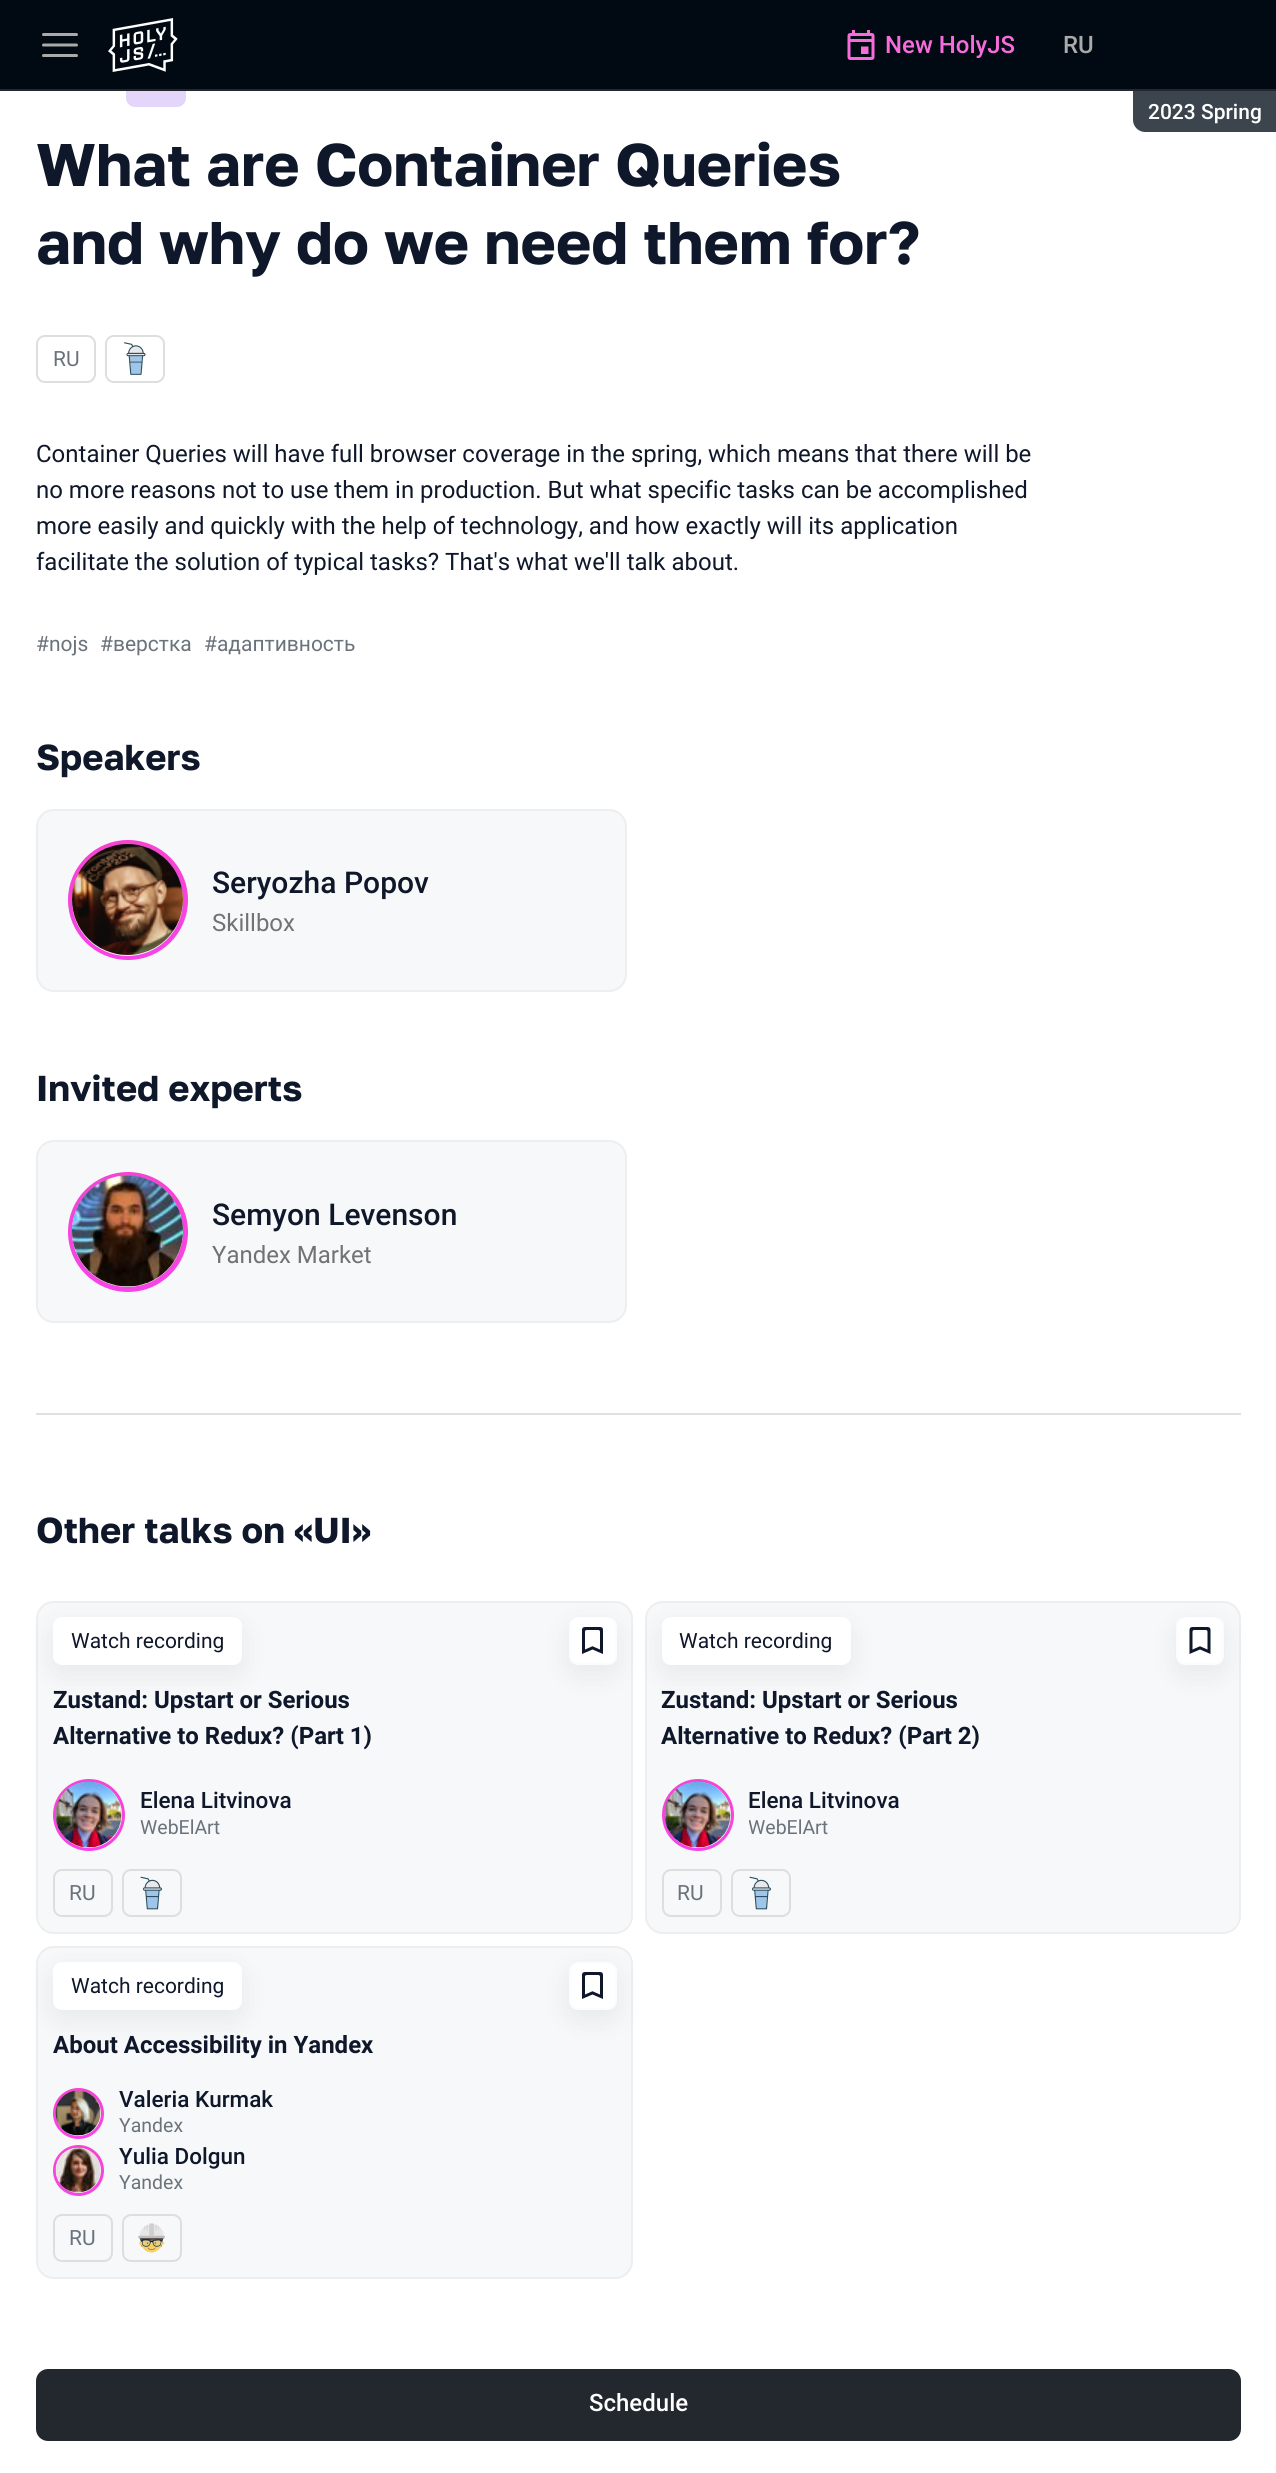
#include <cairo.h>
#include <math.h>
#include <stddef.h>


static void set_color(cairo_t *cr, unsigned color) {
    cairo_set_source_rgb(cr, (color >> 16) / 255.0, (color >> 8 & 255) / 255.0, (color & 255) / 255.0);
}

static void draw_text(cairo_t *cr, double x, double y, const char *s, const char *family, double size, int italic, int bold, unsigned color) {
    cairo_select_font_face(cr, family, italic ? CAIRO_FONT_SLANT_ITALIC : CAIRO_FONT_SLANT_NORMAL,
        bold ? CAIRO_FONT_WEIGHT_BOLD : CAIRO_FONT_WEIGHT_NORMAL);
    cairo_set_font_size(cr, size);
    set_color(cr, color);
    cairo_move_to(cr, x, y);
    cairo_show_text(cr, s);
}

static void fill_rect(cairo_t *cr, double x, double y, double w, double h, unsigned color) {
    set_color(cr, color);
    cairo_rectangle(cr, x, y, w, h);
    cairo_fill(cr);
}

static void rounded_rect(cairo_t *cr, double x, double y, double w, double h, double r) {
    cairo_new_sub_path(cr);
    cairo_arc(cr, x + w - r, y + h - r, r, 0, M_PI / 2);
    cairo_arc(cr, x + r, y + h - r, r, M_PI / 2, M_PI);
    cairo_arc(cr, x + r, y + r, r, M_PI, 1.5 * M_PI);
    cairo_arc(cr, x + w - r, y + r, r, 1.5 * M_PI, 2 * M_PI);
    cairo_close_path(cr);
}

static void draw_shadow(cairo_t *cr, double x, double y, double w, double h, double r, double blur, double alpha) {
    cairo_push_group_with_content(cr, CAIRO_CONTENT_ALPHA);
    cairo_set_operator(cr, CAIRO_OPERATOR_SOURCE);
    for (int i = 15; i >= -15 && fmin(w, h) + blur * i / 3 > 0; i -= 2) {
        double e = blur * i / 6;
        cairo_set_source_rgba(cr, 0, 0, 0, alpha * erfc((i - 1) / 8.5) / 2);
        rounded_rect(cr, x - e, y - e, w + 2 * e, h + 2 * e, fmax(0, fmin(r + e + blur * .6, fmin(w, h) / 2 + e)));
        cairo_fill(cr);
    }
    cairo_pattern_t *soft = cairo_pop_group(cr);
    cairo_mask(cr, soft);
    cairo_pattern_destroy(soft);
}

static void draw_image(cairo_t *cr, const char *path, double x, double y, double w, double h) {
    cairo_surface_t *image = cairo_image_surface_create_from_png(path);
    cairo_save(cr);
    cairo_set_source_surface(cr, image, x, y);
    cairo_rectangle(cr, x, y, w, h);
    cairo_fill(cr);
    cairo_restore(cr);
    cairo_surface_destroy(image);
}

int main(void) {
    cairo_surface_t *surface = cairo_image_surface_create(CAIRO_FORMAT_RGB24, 1276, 2473);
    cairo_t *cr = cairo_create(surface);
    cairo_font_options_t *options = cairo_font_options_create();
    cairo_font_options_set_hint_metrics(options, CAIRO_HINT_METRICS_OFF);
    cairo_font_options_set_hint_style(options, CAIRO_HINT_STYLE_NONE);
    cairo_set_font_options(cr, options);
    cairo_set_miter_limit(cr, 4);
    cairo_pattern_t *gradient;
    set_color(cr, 0xFFFFFF);
    cairo_paint(cr);
    set_color(cr, 0xE4D6FA);
    rounded_rect(cr, 126, 59, 60, 48, 9);
    cairo_fill(cr);
    fill_rect(cr, 0, 0, 1276, 89, 0x010A12);
    draw_image(cr, "assets/img1.png", 42, 33, 36, 24);
    draw_image(cr, "assets/img2.png", 108, 18, 70, 54);
    draw_image(cr, "assets/img3.png", 847, 30, 28, 30);
    draw_text(cr, 885, 53, "New HolyJS", "Roboto Medium", 24, 0, 0, 0xF86BDB);
    set_color(cr, 0x3C454D);
    cairo_new_path(cr);
    cairo_move_to(cr, 1133, 90);
    cairo_line_to(cr, 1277, 90);
    cairo_line_to(cr, 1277, 132);
    cairo_line_to(cr, 1145, 132);
    cairo_curve_to(cr, 1138.5, 132, 1133, 126.5, 1133, 120);
    cairo_close_path(cr);
    cairo_fill(cr);
    draw_text(cr, 1148, 119, "2023 Spring", "Roboto Medium", 21, 0, 0, 0xFFFFFF);
    draw_text(cr, 1063, 53, "RU", "Roboto Medium", 24, 0, 0, 0xAAAAAA);
    fill_rect(cr, 0, 89, 1276, 2, 0x22282D);
    draw_text(cr, 36, 186, "What are Container Queries", "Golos", 60, 0, 1, 0x0F172A);
    draw_text(cr, 36, 264, "and why do we need them for?", "Golos", 60, 0, 1, 0x0F172A);
    rounded_rect(cr, 37, 336, 58, 46, 8);
    set_color(cr, 0xDEDEDE);
    cairo_stroke(cr);
    draw_text(cr, 53, 366, "RU", "Roboto", 21, 0, 0, 0x6A737C);
    rounded_rect(cr, 106, 336, 58, 46, 8);
    set_color(cr, 0xDEDEDE);
    cairo_stroke(cr);
    draw_image(cr, "assets/img4.png", 124, 342, 22, 33);
    draw_text(cr, 36, 462, "Container Queries will have full browser coverage in the spring, which means that there will be", "Roboto", 24, 0, 0, 0x0F172A);
    draw_text(cr, 36, 498, "no more reasons not to use them in production. But what specific tasks can be accomplished", "Roboto", 24, 0, 0, 0x0F172A);
    draw_text(cr, 36, 534, "more easily and quickly with the help of technology, and how exactly will its application", "Roboto", 24, 0, 0, 0x0F172A);
    draw_text(cr, 36, 570, "facilitate the solution of typical tasks? That's what we'll talk about.", "Roboto", 24, 0, 0, 0x0F172A);
    draw_text(cr, 36, 651, "#nojs", "Roboto", 21, 0, 0, 0x6A737C);
    draw_text(cr, 100, 651, "#верстка", "Roboto", 21, 0, 0, 0x6A737C);
    draw_text(cr, 204, 651, "#адаптивность", "Roboto", 21, 0, 0, 0x6A737C);
    draw_text(cr, 36, 770, "Speakers", "Golos", 36, 0, 1, 0x0F172A);
    set_color(cr, 0xF7F8F9);
    rounded_rect(cr, 36, 809, 591, 183, 18);
    cairo_fill(cr);
    rounded_rect(cr, 37, 810, 589, 181, 17);
    cairo_set_source_rgba(cr, 0.827, 0.827, 0.827, 0.28);
    cairo_stroke(cr);
    gradient = cairo_pattern_create_linear(128, 840, 128, 960);
    cairo_pattern_add_color_stop_rgba(gradient, 0, 0.965, 0.267, 0.82, 1);
    cairo_pattern_add_color_stop_rgba(gradient, 1, 0.965, 0.267, 0.914, 1);
    cairo_set_source(cr, gradient);
    cairo_pattern_destroy(gradient);
    cairo_arc(cr, 128, 900, 60, 0, 2 * M_PI);
    cairo_fill(cr);
    set_color(cr, 0xF1F1F1);
    cairo_arc(cr, 127.5, 900.5, 55.5, 0, 2 * M_PI);
    cairo_fill(cr);
    draw_image(cr, "assets/img5.png", 72, 844, 111, 111);
    draw_text(cr, 212, 893, "Seryozha Popov", "Roboto Medium", 30, 0, 0, 0x0F172A);
    draw_text(cr, 212, 931, "Skillbox", "Roboto", 24, 0, 0, 0x727272);
    draw_text(cr, 36, 1101, "Invited experts", "Golos", 36, 0, 1, 0x0F172A);
    set_color(cr, 0xF7F8F9);
    rounded_rect(cr, 36, 1140, 591, 183, 18);
    cairo_fill(cr);
    rounded_rect(cr, 37, 1141, 589, 181, 17);
    cairo_set_source_rgba(cr, 0.827, 0.827, 0.827, 0.28);
    cairo_stroke(cr);
    gradient = cairo_pattern_create_linear(128, 1172, 128, 1292);
    cairo_pattern_add_color_stop_rgba(gradient, 0, 0.965, 0.267, 0.82, 1);
    cairo_pattern_add_color_stop_rgba(gradient, 1, 0.965, 0.267, 0.914, 1);
    cairo_set_source(cr, gradient);
    cairo_pattern_destroy(gradient);
    cairo_arc(cr, 128, 1232, 60, 0, 2 * M_PI);
    cairo_fill(cr);
    set_color(cr, 0xF1F1F1);
    cairo_arc(cr, 127.5, 1231.5, 55.5, 0, 2 * M_PI);
    cairo_fill(cr);
    draw_image(cr, "assets/img6.png", 72, 1175, 111, 112);
    draw_text(cr, 212, 1225, "Semyon Levenson", "Roboto Medium", 30, 0, 0, 0x0F172A);
    draw_text(cr, 212, 1263, "Yandex Market", "Roboto", 24, 0, 0, 0x727272);
    fill_rect(cr, 36, 1413, 1205, 2, 0xE0E0E0);
    draw_text(cr, 36, 1543, "Other talks on «UI»", "Golos", 36, 0, 1, 0x0F172A);
    set_color(cr, 0xF7F8F9);
    rounded_rect(cr, 36, 1601, 597, 333, 18);
    cairo_fill(cr);
    rounded_rect(cr, 37, 1602, 595, 331, 17);
    cairo_set_source_rgba(cr, 0.827, 0.827, 0.827, 0.28);
    cairo_stroke(cr);
    set_color(cr, 0x1E3648);
    draw_shadow(cr, 53, 1626, 189, 48, 9, 15, 0.08);
    set_color(cr, 0xFFFFFF);
    rounded_rect(cr, 53, 1617, 189, 48, 9);
    cairo_fill(cr);
    draw_text(cr, 71, 1648, "Watch recording", "Roboto", 21, 0, 0, 0x0F172A);
    set_color(cr, 0xF7F8F9);
    rounded_rect(cr, 645, 1601, 596, 333, 18);
    cairo_fill(cr);
    rounded_rect(cr, 646, 1602, 594, 331, 17);
    cairo_set_source_rgba(cr, 0.827, 0.827, 0.827, 0.28);
    cairo_stroke(cr);
    set_color(cr, 0x1E3648);
    draw_shadow(cr, 662, 1626, 189, 48, 9, 15, 0.08);
    set_color(cr, 0xFFFFFF);
    rounded_rect(cr, 662, 1617, 189, 48, 9);
    cairo_fill(cr);
    set_color(cr, 0x1E3648);
    draw_shadow(cr, 569, 1626, 48, 48, 9, 15, 0.08);
    set_color(cr, 0xFFFFFF);
    rounded_rect(cr, 570, 1618, 46, 46, 8);
    cairo_fill_preserve(cr);
    set_color(cr, 0xFCFCFC);
    cairo_stroke(cr);
    draw_image(cr, "assets/img7.png", 582, 1627, 21, 27);
    draw_text(cr, 53, 1708, "Zustand: Upstart or Serious", "Roboto", 24, 0, 1, 0x0F172A);
    draw_text(cr, 53, 1744, "Alternative to Redux? (Part 1)", "Roboto", 24, 0, 1, 0x0F172A);
    gradient = cairo_pattern_create_linear(89, 1779, 89, 1851);
    cairo_pattern_add_color_stop_rgba(gradient, 0, 0.965, 0.267, 0.82, 1);
    cairo_pattern_add_color_stop_rgba(gradient, 1, 0.965, 0.267, 0.914, 1);
    cairo_set_source(cr, gradient);
    cairo_pattern_destroy(gradient);
    cairo_new_path(cr);
    cairo_arc(cr, 89, 1815, 36, 0, 2 * M_PI);
    cairo_fill(cr);
    set_color(cr, 0xF1F1F1);
    cairo_arc(cr, 89, 1815, 33, 0, 2 * M_PI);
    cairo_fill(cr);
    draw_image(cr, "assets/img8.png", 55, 1781, 67, 67);
    draw_text(cr, 140, 1808, "Elena Litvinova", "Roboto Medium", 22.5, 0, 0, 0x0F172A);
    draw_text(cr, 140, 1834, "WebElArt", "Roboto", 19.5, 0, 0, 0x6A737C);
    rounded_rect(cr, 54, 1870, 58, 46, 8);
    set_color(cr, 0xDEDEDE);
    cairo_stroke(cr);
    draw_text(cr, 69, 1900, "RU", "Roboto", 21, 0, 0, 0x6A737C);
    rounded_rect(cr, 123, 1870, 58, 46, 8);
    set_color(cr, 0xDEDEDE);
    cairo_stroke(cr);
    draw_image(cr, "assets/img9.png", 140, 1876, 22, 34);
    draw_text(cr, 679, 1648, "Watch recording", "Roboto", 21, 0, 0, 0x0F172A);
    set_color(cr, 0x1E3648);
    draw_shadow(cr, 1176, 1626, 48, 48, 9, 15, 0.08);
    set_color(cr, 0xFFFFFF);
    rounded_rect(cr, 1177, 1618, 46, 46, 8);
    cairo_fill_preserve(cr);
    set_color(cr, 0xFCFCFC);
    cairo_stroke(cr);
    draw_image(cr, "assets/img10.png", 1189, 1627, 22, 27);
    draw_text(cr, 661, 1708, "Zustand: Upstart or Serious", "Roboto", 24, 0, 1, 0x0F172A);
    draw_text(cr, 661, 1744, "Alternative to Redux? (Part 2)", "Roboto", 24, 0, 1, 0x0F172A);
    gradient = cairo_pattern_create_linear(698, 1779, 698, 1851);
    cairo_pattern_add_color_stop_rgba(gradient, 0, 0.965, 0.267, 0.82, 1);
    cairo_pattern_add_color_stop_rgba(gradient, 1, 0.965, 0.267, 0.914, 1);
    cairo_set_source(cr, gradient);
    cairo_pattern_destroy(gradient);
    cairo_new_path(cr);
    cairo_arc(cr, 698, 1815, 36, 0, 2 * M_PI);
    cairo_fill(cr);
    set_color(cr, 0xF1F1F1);
    cairo_arc(cr, 698, 1815, 33, 0, 2 * M_PI);
    cairo_fill(cr);
    draw_image(cr, "assets/img11.png", 664, 1781, 67, 67);
    draw_text(cr, 748, 1808, "Elena Litvinova", "Roboto Medium", 22.5, 0, 0, 0x0F172A);
    cairo_save(cr);
    cairo_rectangle(cr, 749, 1817, 151, 24);
    cairo_clip(cr);
    draw_text(cr, 748, 1834, "WebElArt", "Roboto", 19.5, 0, 0, 0x6A737C);
    cairo_restore(cr);
    rounded_rect(cr, 663, 1870, 58, 46, 8);
    set_color(cr, 0xDEDEDE);
    cairo_stroke(cr);
    draw_text(cr, 677, 1900, "RU", "Roboto", 21, 0, 0, 0x6A737C);
    rounded_rect(cr, 732, 1870, 58, 46, 8);
    set_color(cr, 0xDEDEDE);
    cairo_stroke(cr);
    draw_image(cr, "assets/img9.png", 749, 1876, 22, 34);
    set_color(cr, 0xF7F8F9);
    rounded_rect(cr, 36, 1946, 597, 333, 18);
    cairo_fill(cr);
    rounded_rect(cr, 37, 1947, 595, 331, 17);
    cairo_set_source_rgba(cr, 0.827, 0.827, 0.827, 0.28);
    cairo_stroke(cr);
    set_color(cr, 0x1E3648);
    draw_shadow(cr, 53, 1971, 189, 48, 9, 15, 0.08);
    set_color(cr, 0xFFFFFF);
    rounded_rect(cr, 53, 1962, 189, 48, 9);
    cairo_fill(cr);
    draw_text(cr, 71, 1993, "Watch recording", "Roboto", 21, 0, 0, 0x0F172A);
    set_color(cr, 0x1E3648);
    draw_shadow(cr, 569, 1971, 48, 48, 9, 15, 0.08);
    set_color(cr, 0xFFFFFF);
    rounded_rect(cr, 570, 1963, 46, 46, 8);
    cairo_fill_preserve(cr);
    set_color(cr, 0xFCFCFC);
    cairo_stroke(cr);
    draw_image(cr, "assets/img7.png", 582, 1972, 21, 27);
    draw_text(cr, 53, 2053, "About Accessibility in Yandex", "Roboto", 24, 0, 1, 0x0F172A);
    gradient = cairo_pattern_create_linear(78, 2088, 78, 2139);
    cairo_pattern_add_color_stop_rgba(gradient, 0, 0.965, 0.267, 0.82, 1);
    cairo_pattern_add_color_stop_rgba(gradient, 1, 0.965, 0.267, 0.914, 1);
    cairo_set_source(cr, gradient);
    cairo_pattern_destroy(gradient);
    cairo_new_path(cr);
    cairo_arc(cr, 78.5, 2113.5, 25.5, 0, 2 * M_PI);
    cairo_fill(cr);
    set_color(cr, 0xF1F1F1);
    cairo_arc(cr, 78.5, 2113.5, 22.5, 0, 2 * M_PI);
    cairo_fill(cr);
    draw_image(cr, "assets/img12.png", 55, 2090, 46, 46);
    draw_text(cr, 119, 2107, "Valeria Kurmak", "Roboto Medium", 22.5, 0, 0, 0x0F172A);
    draw_text(cr, 119, 2132, "Yandex", "Roboto", 19.5, 0, 0, 0x6A737C);
    gradient = cairo_pattern_create_linear(78, 2145, 78, 2196);
    cairo_pattern_add_color_stop_rgba(gradient, 0, 0.965, 0.267, 0.82, 1);
    cairo_pattern_add_color_stop_rgba(gradient, 1, 0.965, 0.267, 0.914, 1);
    cairo_set_source(cr, gradient);
    cairo_pattern_destroy(gradient);
    cairo_new_path(cr);
    cairo_arc(cr, 78.5, 2170.5, 25.5, 0, 2 * M_PI);
    cairo_fill(cr);
    set_color(cr, 0xF1F1F1);
    cairo_arc(cr, 78.5, 2170.5, 22.5, 0, 2 * M_PI);
    cairo_fill(cr);
    draw_image(cr, "assets/img13.png", 55, 2147, 46, 46);
    draw_text(cr, 119, 2164, "Yulia Dolgun", "Roboto Medium", 22.5, 0, 0, 0x0F172A);
    draw_text(cr, 119, 2189, "Yandex", "Roboto", 19.5, 0, 0, 0x6A737C);
    rounded_rect(cr, 54, 2215, 58, 46, 8);
    set_color(cr, 0xDEDEDE);
    cairo_stroke(cr);
    draw_text(cr, 69, 2245, "RU", "Roboto", 21, 0, 0, 0x6A737C);
    rounded_rect(cr, 123, 2215, 58, 46, 8);
    set_color(cr, 0xDEDEDE);
    cairo_stroke(cr);
    draw_image(cr, "assets/img14.png", 138, 2223, 27, 30);
    set_color(cr, 0x22282D);
    rounded_rect(cr, 36, 2369, 1205, 72, 12);
    cairo_fill(cr);
    draw_text(cr, 589, 2411, "Schedule", "Roboto Medium", 24, 0, 0, 0xFFFFFF);
    cairo_surface_write_to_png(surface, "output.png");
    cairo_font_options_destroy(options);
    cairo_destroy(cr);
    cairo_surface_destroy(surface);
    return 0;
}
